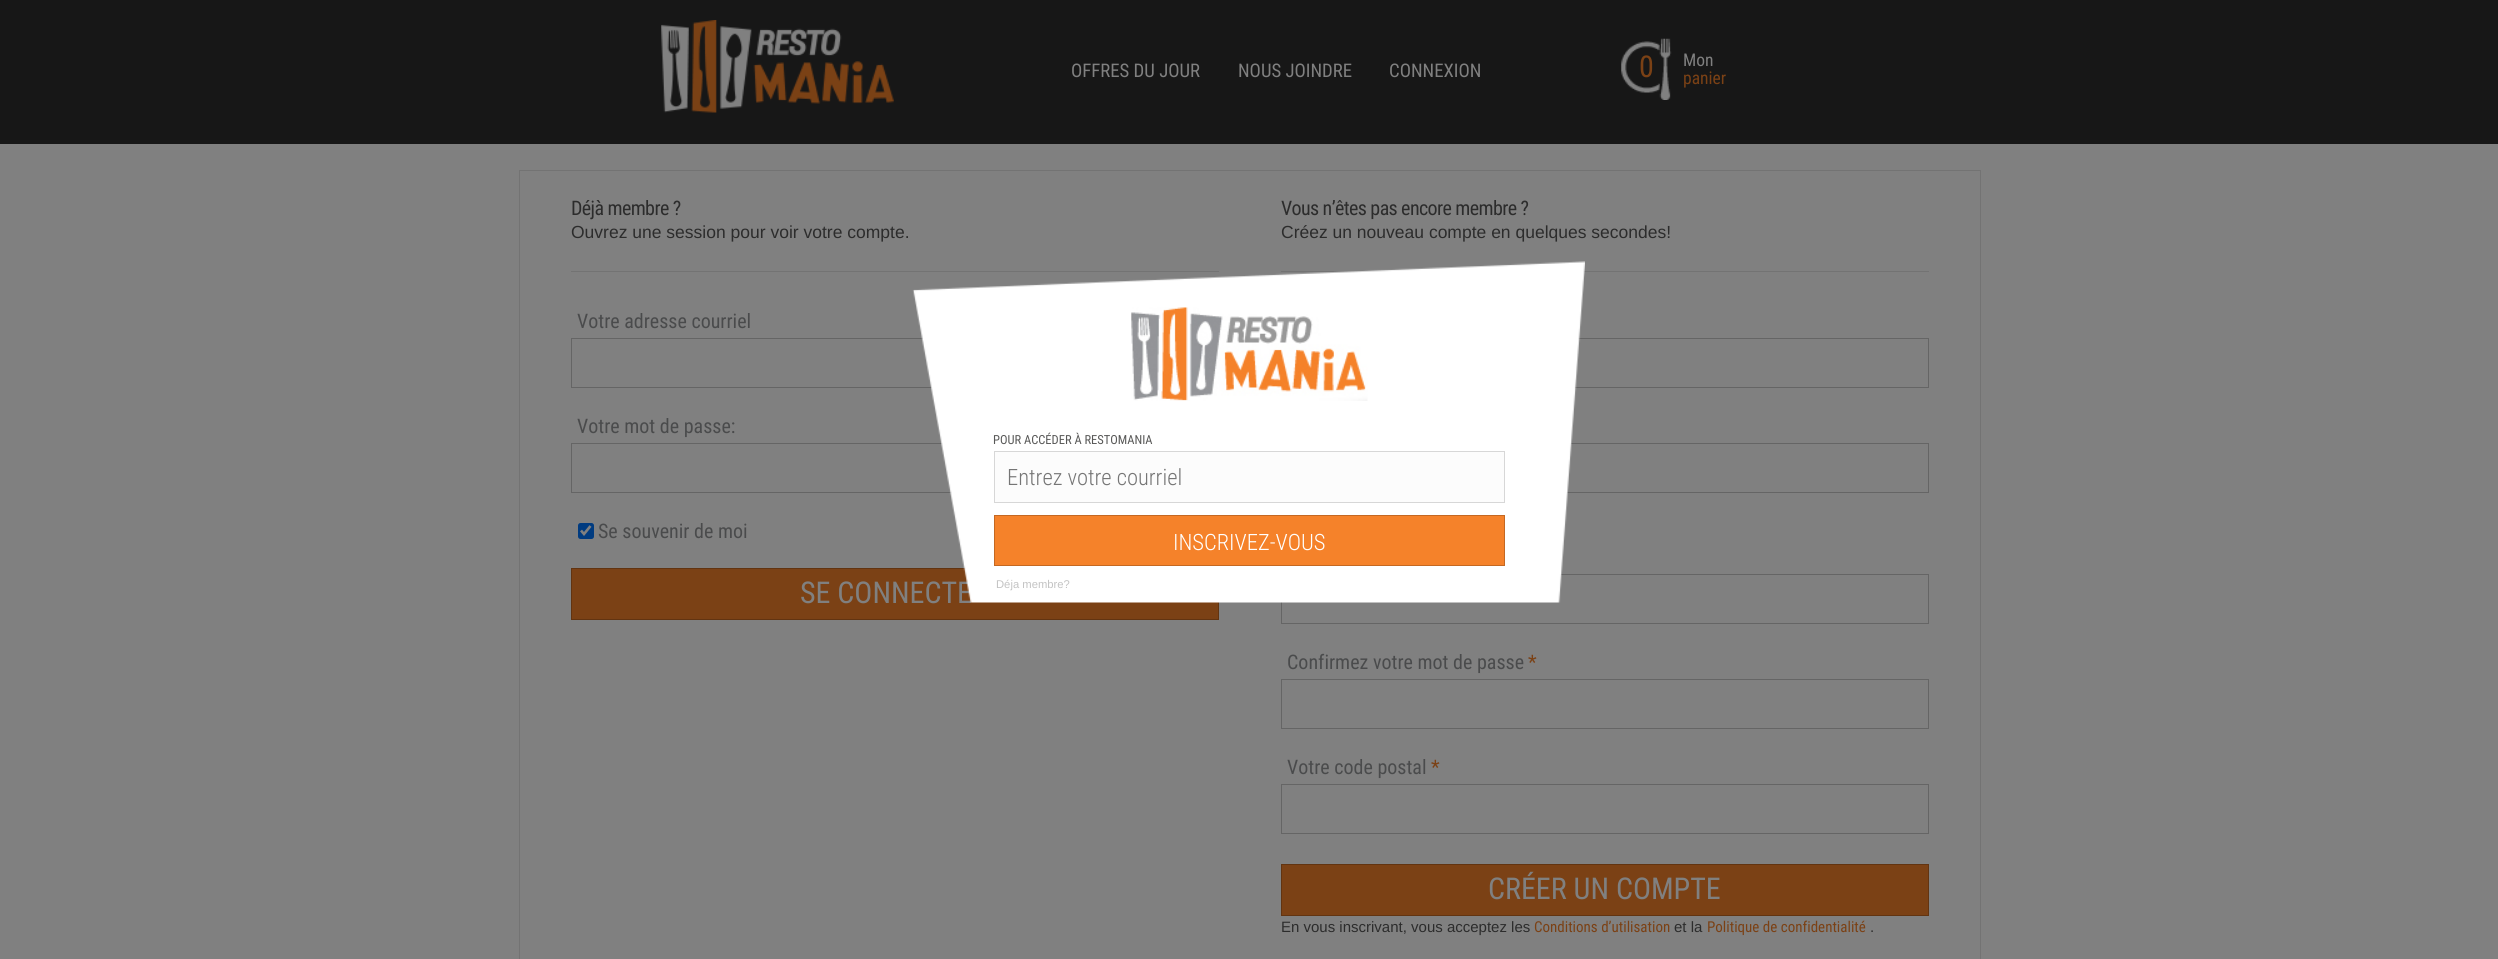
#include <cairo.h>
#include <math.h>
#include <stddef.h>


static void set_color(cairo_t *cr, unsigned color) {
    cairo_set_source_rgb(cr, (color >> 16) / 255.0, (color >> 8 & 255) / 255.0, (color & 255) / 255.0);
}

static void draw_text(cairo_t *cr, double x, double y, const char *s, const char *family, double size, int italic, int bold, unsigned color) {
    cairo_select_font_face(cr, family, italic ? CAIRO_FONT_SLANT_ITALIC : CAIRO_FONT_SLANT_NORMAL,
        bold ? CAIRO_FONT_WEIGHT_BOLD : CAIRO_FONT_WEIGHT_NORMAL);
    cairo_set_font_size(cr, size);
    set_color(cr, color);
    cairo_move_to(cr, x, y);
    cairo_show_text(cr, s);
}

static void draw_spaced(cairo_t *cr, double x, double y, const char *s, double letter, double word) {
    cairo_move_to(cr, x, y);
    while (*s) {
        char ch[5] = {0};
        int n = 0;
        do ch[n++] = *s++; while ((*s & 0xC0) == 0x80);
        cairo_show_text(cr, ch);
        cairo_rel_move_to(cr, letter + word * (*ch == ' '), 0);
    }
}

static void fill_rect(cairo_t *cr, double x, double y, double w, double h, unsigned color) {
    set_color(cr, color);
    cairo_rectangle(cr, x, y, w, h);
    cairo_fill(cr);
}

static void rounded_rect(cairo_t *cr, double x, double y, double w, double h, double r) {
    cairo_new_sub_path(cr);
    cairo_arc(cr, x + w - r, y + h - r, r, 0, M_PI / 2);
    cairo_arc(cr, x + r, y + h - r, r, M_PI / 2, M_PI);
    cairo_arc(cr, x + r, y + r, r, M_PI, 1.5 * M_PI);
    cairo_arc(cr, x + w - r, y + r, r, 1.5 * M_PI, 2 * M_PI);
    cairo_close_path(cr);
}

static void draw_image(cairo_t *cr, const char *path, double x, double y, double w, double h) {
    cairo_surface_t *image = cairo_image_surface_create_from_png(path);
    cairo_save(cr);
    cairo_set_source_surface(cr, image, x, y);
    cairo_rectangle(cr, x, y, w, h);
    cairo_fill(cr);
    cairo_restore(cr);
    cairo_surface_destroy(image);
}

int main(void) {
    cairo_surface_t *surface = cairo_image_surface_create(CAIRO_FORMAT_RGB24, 2498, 959);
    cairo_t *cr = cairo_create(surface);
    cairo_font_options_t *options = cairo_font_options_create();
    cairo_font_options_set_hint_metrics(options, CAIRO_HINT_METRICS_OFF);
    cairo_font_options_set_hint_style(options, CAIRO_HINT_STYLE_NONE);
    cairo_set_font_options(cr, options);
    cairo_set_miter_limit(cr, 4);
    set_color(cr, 0x808080);
    cairo_paint(cr);
    fill_rect(cr, 0, 0, 2498, 144, 0x171717);
    draw_image(cr, "assets/img1.png", 661, 20, 233, 93);
    draw_text(cr, 1071, 77, "OFFRES DU JOUR", "Roboto Condensed", 18.75, 0, 0, 0x808080);
    draw_text(cr, 1238, 77, "NOUS JOINDRE", "Roboto Condensed", 18.75, 0, 0, 0x808080);
    draw_text(cr, 1389, 77, "CONNEXION", "Roboto Condensed", 18.75, 0, 0, 0x808080);
    draw_image(cr, "assets/img2.png", 1621, 38, 51, 62);
    draw_text(cr, 1639, 77, "0", "Roboto Condensed", 30, 0, 0, 0x7B4115);
    draw_text(cr, 1683, 66, "Mon", "Roboto Condensed", 17.5, 0, 0, 0x808080);
    draw_text(cr, 1683, 84, "panier", "Roboto Condensed", 17.5, 0, 0, 0x7B4115);
    cairo_rectangle(cr, 519.5, 170.5, 1461, 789);
    set_color(cr, 0x737373);
    cairo_set_line_width(cr, 1);
    cairo_stroke(cr);
    cairo_set_font_size(cr, 20);
    set_color(cr, 0x2C2C2C);
    draw_spaced(cr, 571, 215, "Déjà membre ?", -0.6, 0);
    draw_text(cr, 571, 238, "Ouvrez une session pour voir votre compte.", "Liberation Sans", 17.5, 0, 0, 0x2C2C2C);
    fill_rect(cr, 571, 271, 648, 1, 0x737373);
    draw_text(cr, 577, 328, "Votre adresse courriel", "Roboto Condensed", 20, 0, 0, 0x4A4B4C);
    cairo_rectangle(cr, 571.5, 338.5, 647, 49);
    set_color(cr, 0x656565);
    cairo_stroke(cr);
    draw_text(cr, 577, 433, "Votre mot de passe:", "Roboto Condensed", 20, 0, 0, 0x4A4B4C);
    cairo_rectangle(cr, 571.5, 443.5, 647, 49);
    set_color(cr, 0x656565);
    cairo_stroke(cr);
    set_color(cr, 0x003B80);
    rounded_rect(cr, 578, 523, 16, 16, 2.5);
    cairo_fill(cr);
    cairo_new_path(cr);
    cairo_move_to(cr, 581, 530.5);
    cairo_line_to(cr, 584, 534);
    cairo_line_to(cr, 590.5, 526);
    set_color(cr, 0x808080);
    cairo_set_line_width(cr, 2.6);
    cairo_stroke(cr);
    draw_text(cr, 598, 538, "Se souvenir de moi", "Roboto Condensed", 20, 0, 0, 0x4A4B4C);
    set_color(cr, 0x7B4115);
    cairo_rectangle(cr, 571.5, 568.5, 647, 51);
    cairo_fill_preserve(cr);
    set_color(cr, 0x623411);
    cairo_set_line_width(cr, 1);
    cairo_stroke(cr);
    draw_text(cr, 800, 603, "SE CONNECTE", "Roboto Condensed", 30, 0, 0, 0x808080);
    cairo_set_font_size(cr, 20);
    set_color(cr, 0x2C2C2C);
    draw_spaced(cr, 1281, 215, "Vous n’êtes pas encore membre ?", -0.6, 0);
    draw_text(cr, 1281, 238, "Créez un nouveau compte en quelques secondes!", "Liberation Sans", 17.5, 0, 0, 0x2C2C2C);
    fill_rect(cr, 1281, 271, 648, 1, 0x737373);
    cairo_rectangle(cr, 1281.5, 338.5, 647, 49);
    set_color(cr, 0x656565);
    cairo_stroke(cr);
    cairo_rectangle(cr, 1281.5, 443.5, 647, 49);
    cairo_stroke(cr);
    cairo_rectangle(cr, 1281.5, 574.5, 647, 49);
    cairo_stroke(cr);
    draw_text(cr, 1287, 669, "Confirmez votre mot de passe", "Roboto Condensed", 20, 0, 0, 0x4A4B4C);
    draw_text(cr, 1528, 669, "*", "Roboto Condensed", 20, 0, 0, 0x7B4115);
    cairo_rectangle(cr, 1281.5, 679.5, 647, 49);
    set_color(cr, 0x656565);
    cairo_stroke(cr);
    draw_text(cr, 1287, 774, "Votre code postal", "Roboto Condensed", 20, 0, 0, 0x4A4B4C);
    draw_text(cr, 1431, 774, "*", "Roboto Condensed", 20, 0, 0, 0x7B4115);
    cairo_rectangle(cr, 1281.5, 784.5, 647, 49);
    set_color(cr, 0x656565);
    cairo_stroke(cr);
    set_color(cr, 0x7B4115);
    cairo_rectangle(cr, 1281.5, 864.5, 647, 51);
    cairo_fill_preserve(cr);
    set_color(cr, 0x623411);
    cairo_stroke(cr);
    draw_text(cr, 1488, 899, "CRÉER UN COMPTE", "Roboto Condensed", 30, 0, 0, 0x808080);
    draw_text(cr, 1281, 932, "En vous inscrivant, vous acceptez les", "Liberation Sans", 15, 0, 0, 0x2C2C2C);
    draw_text(cr, 1534, 932, "Conditions d’utilisation", "Roboto Condensed", 15, 0, 0, 0x7B4115);
    draw_text(cr, 1674, 932, "et la", "Liberation Sans", 15, 0, 0, 0x2C2C2C);
    draw_text(cr, 1707, 932, "Politique de confidentialité", "Roboto Condensed", 15, 0, 0, 0x7B4115);
    draw_text(cr, 1870, 932, ".", "Liberation Sans", 15, 0, 0, 0x2C2C2C);
    draw_image(cr, "assets/img3.png", 912, 261, 673, 342);
    draw_image(cr, "assets/img4.png", 1131, 307, 237, 94);
    draw_text(cr, 993, 444, "POUR ACCÉDER À RESTOMANIA", "Roboto Condensed", 12.5, 0, 0, 0x585857);
    set_color(cr, 0xFCFCFC);
    cairo_rectangle(cr, 994.5, 451.5, 510, 51);
    cairo_fill_preserve(cr);
    set_color(cr, 0xD7D7D7);
    cairo_stroke(cr);
    draw_text(cr, 1007, 485, "Entrez votre courriel", "Roboto Condensed Light", 22.5, 0, 0, 0x757575);
    set_color(cr, 0xF5822A);
    cairo_rectangle(cr, 994.5, 515.5, 510, 50);
    cairo_fill_preserve(cr);
    set_color(cr, 0xC46822);
    cairo_stroke(cr);
    draw_text(cr, 1173, 550, "INSCRIVEZ-VOUS", "Roboto Condensed Light", 22.5, 0, 0, 0xFFFFFF);
    draw_text(cr, 996, 588, "Déja membre?", "Liberation Sans", 11.25, 0, 0, 0xC3C3C3);
    cairo_surface_write_to_png(surface, "output.png");
    cairo_font_options_destroy(options);
    cairo_destroy(cr);
    cairo_surface_destroy(surface);
    return 0;
}
